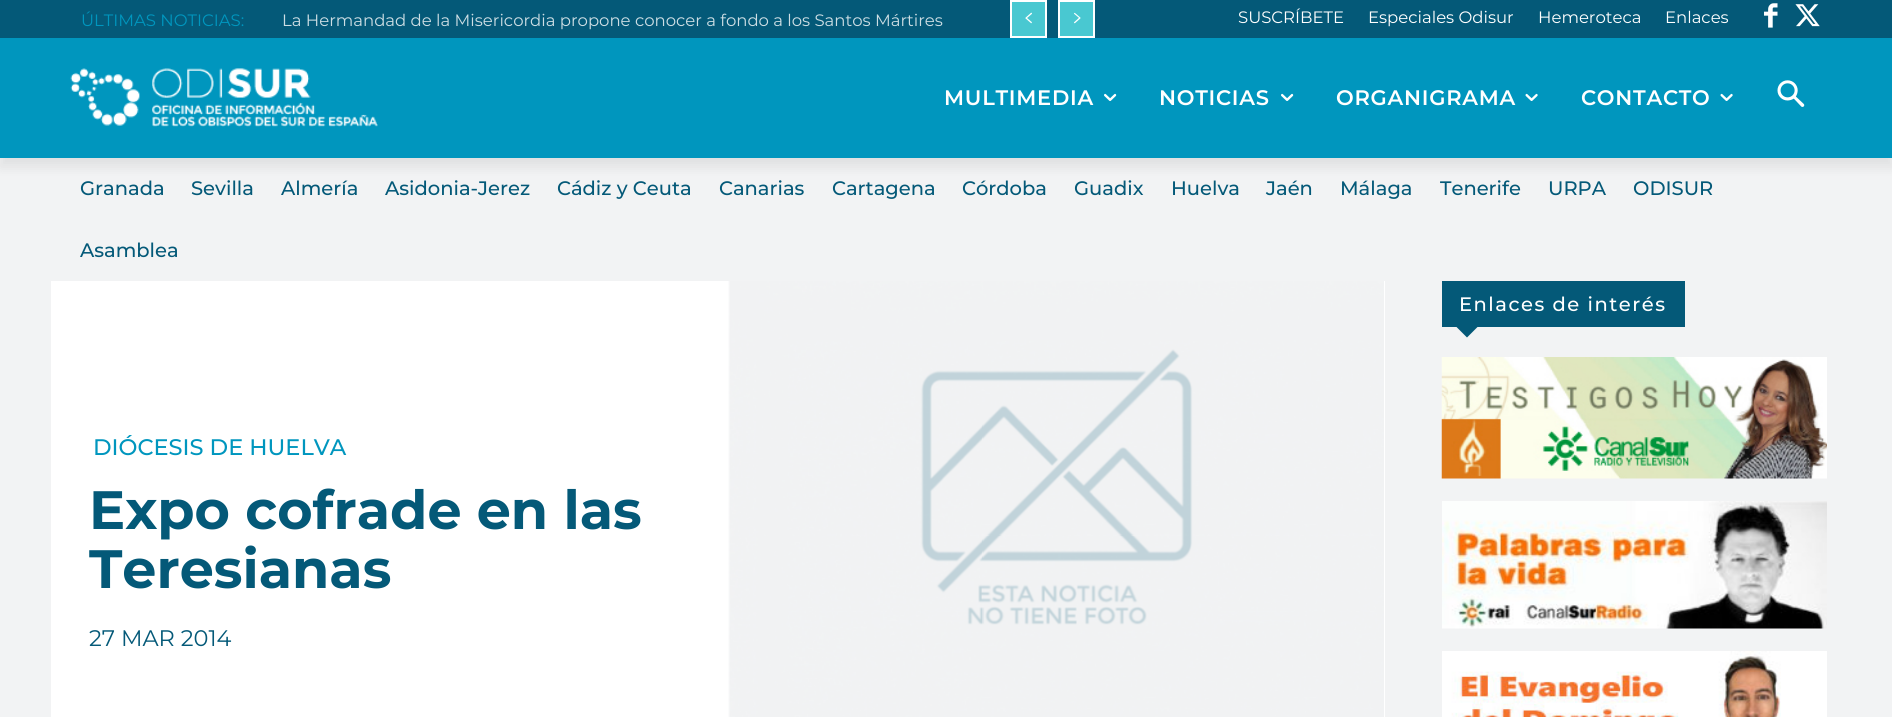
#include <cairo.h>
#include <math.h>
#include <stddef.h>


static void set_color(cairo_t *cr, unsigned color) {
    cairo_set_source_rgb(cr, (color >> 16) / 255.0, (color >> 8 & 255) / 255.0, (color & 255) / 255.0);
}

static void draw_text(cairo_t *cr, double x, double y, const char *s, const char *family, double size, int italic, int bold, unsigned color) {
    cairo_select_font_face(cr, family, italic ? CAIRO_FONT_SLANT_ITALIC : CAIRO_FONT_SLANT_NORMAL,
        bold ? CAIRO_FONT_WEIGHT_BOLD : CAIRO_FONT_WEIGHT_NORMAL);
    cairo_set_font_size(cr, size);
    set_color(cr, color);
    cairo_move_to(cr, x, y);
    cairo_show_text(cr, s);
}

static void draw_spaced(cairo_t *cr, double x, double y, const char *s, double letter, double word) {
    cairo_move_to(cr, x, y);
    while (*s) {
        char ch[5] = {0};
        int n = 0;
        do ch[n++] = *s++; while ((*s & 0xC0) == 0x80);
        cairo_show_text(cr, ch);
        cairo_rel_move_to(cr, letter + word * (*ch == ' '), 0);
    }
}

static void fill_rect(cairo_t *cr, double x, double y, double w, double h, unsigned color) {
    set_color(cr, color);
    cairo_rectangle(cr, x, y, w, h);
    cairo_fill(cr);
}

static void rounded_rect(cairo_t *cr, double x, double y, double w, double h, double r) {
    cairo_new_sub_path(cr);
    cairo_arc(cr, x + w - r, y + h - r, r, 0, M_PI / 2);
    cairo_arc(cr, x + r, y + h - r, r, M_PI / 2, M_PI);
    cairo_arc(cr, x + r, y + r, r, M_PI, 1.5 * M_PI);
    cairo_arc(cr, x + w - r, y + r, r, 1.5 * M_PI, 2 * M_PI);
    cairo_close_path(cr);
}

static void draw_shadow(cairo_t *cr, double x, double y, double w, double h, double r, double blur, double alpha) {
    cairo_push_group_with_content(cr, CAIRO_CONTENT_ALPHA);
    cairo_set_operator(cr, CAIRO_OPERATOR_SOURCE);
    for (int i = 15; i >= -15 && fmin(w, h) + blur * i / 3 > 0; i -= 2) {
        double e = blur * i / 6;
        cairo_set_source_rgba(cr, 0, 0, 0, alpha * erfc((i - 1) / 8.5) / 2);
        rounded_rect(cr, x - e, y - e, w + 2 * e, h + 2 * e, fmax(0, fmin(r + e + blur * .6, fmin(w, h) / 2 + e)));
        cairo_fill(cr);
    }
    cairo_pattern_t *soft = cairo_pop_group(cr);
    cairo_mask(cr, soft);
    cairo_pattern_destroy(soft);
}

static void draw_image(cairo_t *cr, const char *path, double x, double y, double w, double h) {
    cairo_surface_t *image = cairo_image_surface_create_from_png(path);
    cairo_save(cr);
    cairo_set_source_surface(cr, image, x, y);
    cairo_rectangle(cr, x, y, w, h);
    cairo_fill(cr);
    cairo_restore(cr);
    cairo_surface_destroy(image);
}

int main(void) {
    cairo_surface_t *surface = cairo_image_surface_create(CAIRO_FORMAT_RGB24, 1892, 717);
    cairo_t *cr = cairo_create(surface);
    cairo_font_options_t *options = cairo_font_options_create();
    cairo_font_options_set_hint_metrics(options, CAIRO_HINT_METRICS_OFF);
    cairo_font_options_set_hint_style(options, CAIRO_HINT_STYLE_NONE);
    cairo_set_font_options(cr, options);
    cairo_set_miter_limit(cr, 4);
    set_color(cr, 0xF2F3F4);
    cairo_paint(cr);
    fill_rect(cr, 0, 0, 1892, 38, 0x045978);
    draw_text(cr, 81, 26, "ÚLTIMAS NOTICIAS:", "Montserrat", 16.5, 0, 0, 0x0096BE);
    draw_text(cr, 282, 26, "La Hermandad de la Misericordia propone conocer a fondo a los Santos Mártires", "Montserrat", 16.5, 0, 0, 0xCDDEE4);
    set_color(cr, 0x49C8D1);
    cairo_rectangle(cr, 1011, 1, 35, 36);
    cairo_fill_preserve(cr);
    set_color(cr, 0xFFFFFF);
    cairo_stroke(cr);
    draw_image(cr, "assets/img1.png", 1025, 12, 7, 12);
    set_color(cr, 0x49C8D1);
    cairo_rectangle(cr, 1059, 1, 35, 36);
    cairo_fill_preserve(cr);
    set_color(cr, 0xFFFFFF);
    cairo_stroke(cr);
    draw_image(cr, "assets/img2.png", 1074, 12, 7, 12);
    draw_text(cr, 1238, 23, "SUSCRÍBETE", "Montserrat", 16.5, 0, 0, 0xFFFFFF);
    draw_text(cr, 1368, 23, "Especiales Odisur", "Montserrat", 16.5, 0, 0, 0xFFFFFF);
    draw_text(cr, 1538, 23, "Hemeroteca", "Montserrat", 16.5, 0, 0, 0xFFFFFF);
    draw_text(cr, 1665, 23, "Enlaces", "Montserrat", 16.5, 0, 0, 0xFFFFFF);
    draw_image(cr, "assets/img3.png", 1764, 3, 14, 25);
    draw_image(cr, "assets/img4.png", 1795, 4, 25, 23);
    fill_rect(cr, 0, 38, 1892, 120, 0x0096BE);
    draw_image(cr, "assets/img5.png", 70, 68, 308, 59);
    cairo_save(cr);
    cairo_set_fill_rule(cr, CAIRO_FILL_RULE_EVEN_ODD);
    cairo_new_path(cr);
    cairo_move_to(cr, 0, 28);
    cairo_line_to(cr, 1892, 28);
    cairo_line_to(cr, 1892, 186);
    cairo_line_to(cr, 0, 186);
    cairo_close_path(cr);
    cairo_move_to(cr, 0, 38);
    cairo_line_to(cr, 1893, 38);
    cairo_line_to(cr, 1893, 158);
    cairo_line_to(cr, 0, 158);
    cairo_close_path(cr);
    cairo_clip(cr);
    set_color(cr, 0x000000);
    draw_shadow(cr, 0, 47, 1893, 120, 0, 6, 0.08);
    cairo_restore(cr);
    cairo_select_font_face(cr, "Montserrat SemiBold", CAIRO_FONT_SLANT_NORMAL, CAIRO_FONT_WEIGHT_NORMAL);
    cairo_set_font_size(cr, 21);
    set_color(cr, 0xFFFFFF);
    draw_spaced(cr, 944, 105, "MULTIMEDIA", 0.75, 0);
    draw_image(cr, "assets/img6.png", 1104, 93, 13, 8);
    draw_spaced(cr, 1159, 105, "NOTICIAS", 0.75, 0);
    draw_image(cr, "assets/img6.png", 1281, 93, 13, 8);
    draw_spaced(cr, 1336, 105, "ORGANIGRAMA", 0.75, 0);
    draw_image(cr, "assets/img7.png", 1525, 93, 13, 8);
    draw_spaced(cr, 1581, 105, "CONTACTO", 0.75, 0);
    draw_image(cr, "assets/img7.png", 1720, 93, 13, 8);
    draw_image(cr, "assets/img8.png", 1777, 80, 28, 27);
    draw_text(cr, 80, 195, "Granada", "Montserrat Medium", 19.5, 0, 0, 0x045978);
    draw_text(cr, 191, 195, "Sevilla", "Montserrat Medium", 19.5, 0, 0, 0x045978);
    draw_text(cr, 281, 195, "Almería", "Montserrat Medium", 19.5, 0, 0, 0x045978);
    draw_text(cr, 385, 195, "Asidonia-Jerez", "Montserrat Medium", 19.5, 0, 0, 0x045978);
    draw_text(cr, 557, 195, "Cádiz y Ceuta", "Montserrat Medium", 19.5, 0, 0, 0x045978);
    draw_text(cr, 719, 195, "Canarias", "Montserrat Medium", 19.5, 0, 0, 0x045978);
    draw_text(cr, 832, 195, "Cartagena", "Montserrat Medium", 19.5, 0, 0, 0x045978);
    draw_text(cr, 962, 195, "Córdoba", "Montserrat Medium", 19.5, 0, 0, 0x045978);
    draw_text(cr, 1074, 195, "Guadix", "Montserrat Medium", 19.5, 0, 0, 0x045978);
    draw_text(cr, 1171, 195, "Huelva", "Montserrat Medium", 19.5, 0, 0, 0x045978);
    draw_text(cr, 1266, 195, "Jaén", "Montserrat Medium", 19.5, 0, 0, 0x045978);
    draw_text(cr, 1340, 195, "Málaga", "Montserrat Medium", 19.5, 0, 0, 0x045978);
    draw_text(cr, 1440, 195, "Tenerife", "Montserrat Medium", 19.5, 0, 0, 0x045978);
    draw_text(cr, 1548, 195, "URPA", "Montserrat Medium", 19.5, 0, 0, 0x045978);
    draw_text(cr, 1633, 195, "ODISUR", "Montserrat Medium", 19.5, 0, 0, 0x045978);
    draw_text(cr, 80, 257, "Asamblea", "Montserrat Medium", 19.5, 0, 0, 0x045978);
    fill_rect(cr, 1442, 281, 243, 46, 0x045978);
    set_color(cr, 0xFFFFFF);
    draw_spaced(cr, 1459, 311, "Enlaces de interés", 1.5, 0);
    set_color(cr, 0x045978);
    cairo_new_path(cr);
    cairo_move_to(cr, 1456.5, 327);
    cairo_line_to(cr, 1477.5, 327);
    cairo_line_to(cr, 1467, 337.5);
    cairo_close_path(cr);
    cairo_fill(cr);
    draw_image(cr, "assets/img9.png", 1441, 357, 386, 122);
    draw_image(cr, "assets/img10.png", 1442, 501, 385, 128);
    draw_image(cr, "assets/img11.png", 1442, 651, 385, 66);
    fill_rect(cr, 51, 281, 1334, 436, 0xFFFFFF);
    draw_text(cr, 93, 455, "DIÓCESIS DE HUELVA", "Montserrat Medium", 22.5, 0, 0, 0x0096BE);
    draw_text(cr, 89, 529, "Expo cofrade en las", "Montserrat", 54, 0, 1, 0x045978);
    draw_text(cr, 89, 588, "Teresianas", "Montserrat", 54, 0, 1, 0x045978);
    draw_text(cr, 89, 646, "27 MAR 2014", "Montserrat", 22.5, 0, 0, 0x045978);
    draw_image(cr, "assets/img12.png", 728, 281, 656, 436);
    cairo_surface_write_to_png(surface, "output.png");
    cairo_font_options_destroy(options);
    cairo_destroy(cr);
    cairo_surface_destroy(surface);
    return 0;
}
